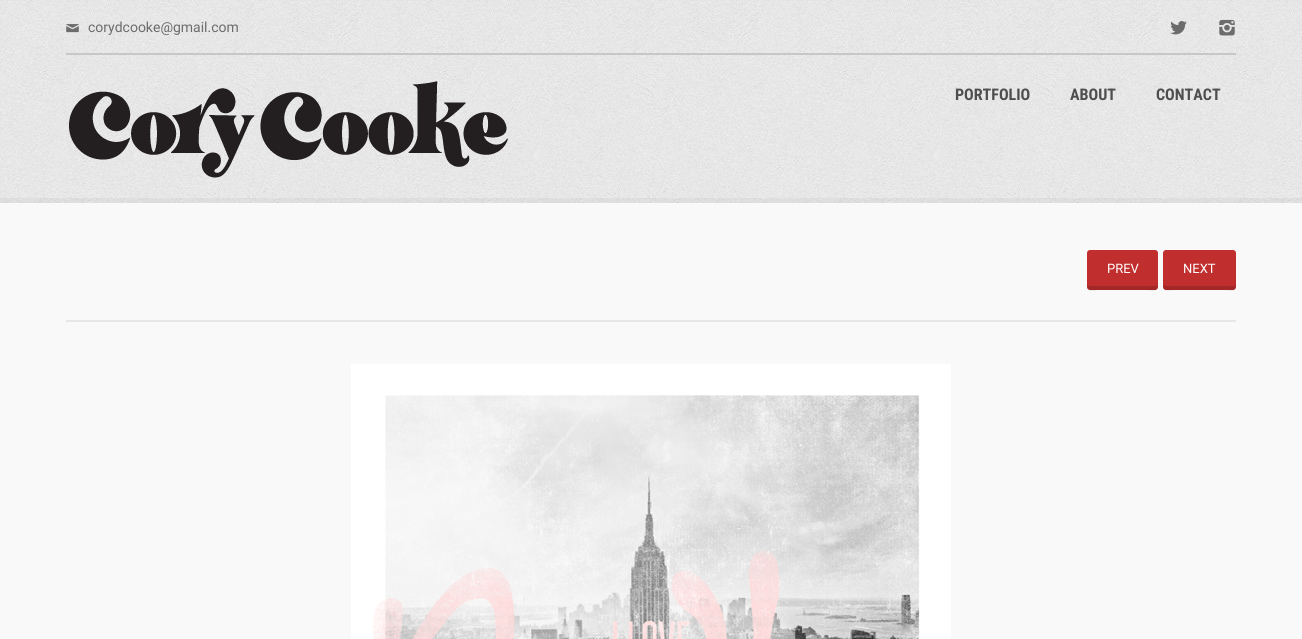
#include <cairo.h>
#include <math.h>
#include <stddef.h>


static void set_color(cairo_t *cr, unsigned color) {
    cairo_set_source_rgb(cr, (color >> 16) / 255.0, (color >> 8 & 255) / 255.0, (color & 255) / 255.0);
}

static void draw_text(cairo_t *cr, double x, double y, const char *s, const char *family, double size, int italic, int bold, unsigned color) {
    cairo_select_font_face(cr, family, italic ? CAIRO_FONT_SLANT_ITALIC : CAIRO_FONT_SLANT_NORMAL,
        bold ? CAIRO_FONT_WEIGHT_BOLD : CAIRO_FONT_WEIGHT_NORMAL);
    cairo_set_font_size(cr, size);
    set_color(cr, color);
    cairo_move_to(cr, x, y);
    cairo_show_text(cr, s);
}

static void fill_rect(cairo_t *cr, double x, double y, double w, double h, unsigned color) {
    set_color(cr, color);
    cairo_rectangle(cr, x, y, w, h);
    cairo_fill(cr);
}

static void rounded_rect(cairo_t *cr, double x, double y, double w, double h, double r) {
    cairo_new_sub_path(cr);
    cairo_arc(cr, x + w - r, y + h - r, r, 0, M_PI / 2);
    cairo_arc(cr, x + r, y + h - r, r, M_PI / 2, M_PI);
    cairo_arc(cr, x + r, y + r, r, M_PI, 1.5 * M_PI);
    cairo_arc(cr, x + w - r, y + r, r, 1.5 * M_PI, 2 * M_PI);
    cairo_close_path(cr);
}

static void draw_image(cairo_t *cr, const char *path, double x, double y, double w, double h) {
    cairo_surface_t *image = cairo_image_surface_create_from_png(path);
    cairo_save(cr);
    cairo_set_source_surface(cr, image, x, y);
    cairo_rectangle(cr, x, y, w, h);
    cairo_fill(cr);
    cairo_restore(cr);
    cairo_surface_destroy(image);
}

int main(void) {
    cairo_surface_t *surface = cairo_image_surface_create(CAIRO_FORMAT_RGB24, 1302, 639);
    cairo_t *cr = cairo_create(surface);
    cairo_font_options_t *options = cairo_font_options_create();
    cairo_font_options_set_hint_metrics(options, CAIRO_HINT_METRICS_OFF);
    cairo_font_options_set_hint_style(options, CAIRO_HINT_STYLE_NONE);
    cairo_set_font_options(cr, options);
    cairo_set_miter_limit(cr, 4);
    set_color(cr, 0xF9F9F9);
    cairo_paint(cr);
    draw_image(cr, "assets/img1.png", 0, 0, 1302, 203);
    cairo_set_source_rgba(cr, 0, 0, 0, 0.04);
    cairo_rectangle(cr, 0, 198, 1302, 5);
    cairo_fill(cr);
    draw_image(cr, "assets/img2.png", 66, 24, 13, 9);
    draw_text(cr, 88, 32, "corydcooke@gmail.com", "Roboto", 14, 0, 0, 0x6C6C6C);
    draw_image(cr, "assets/img3.png", 1170, 21, 17, 14);
    draw_image(cr, "assets/img4.png", 1219, 19, 16, 17);
    fill_rect(cr, 66, 53, 1170, 2, 0xC7C7C7);
    draw_image(cr, "assets/img5.png", 69, 81, 439, 97);
    draw_text(cr, 955, 100, "PORTFOLIO", "Roboto Condensed", 16, 0, 1, 0x4E4E4E);
    draw_text(cr, 1070, 100, "ABOUT", "Roboto Condensed", 16, 0, 1, 0x4E4E4E);
    draw_text(cr, 1156, 100, "CONTACT", "Roboto Condensed", 16, 0, 1, 0x4E4E4E);
    fill_rect(cr, 66, 320, 1170, 2, 0xE7E7E7);
    set_color(cr, 0xC12E2E);
    rounded_rect(cr, 1087, 250, 71, 40, 3);
    cairo_fill(cr);
    cairo_set_source_rgba(cr, 0, 0, 0, 0.15);
    cairo_new_path(cr);
    cairo_move_to(cr, 1087, 283);
    cairo_curve_to(cr, 1087, 293, 1090, 290, 1101, 290);
    cairo_line_to(cr, 1144, 290);
    cairo_curve_to(cr, 1155, 290, 1158, 293, 1158, 283);
    cairo_curve_to(cr, 1158, 285, 1157, 286, 1155, 286);
    cairo_line_to(cr, 1090, 286);
    cairo_curve_to(cr, 1088, 286, 1087, 285, 1087, 283);
    cairo_close_path(cr);
    cairo_fill(cr);
    draw_text(cr, 1107, 273, "PREV", "Roboto", 13, 0, 0, 0xFFFFFF);
    set_color(cr, 0xC12E2E);
    rounded_rect(cr, 1163, 250, 73, 40, 3);
    cairo_fill(cr);
    cairo_set_source_rgba(cr, 0, 0, 0, 0.15);
    cairo_new_path(cr);
    cairo_move_to(cr, 1163, 283);
    cairo_curve_to(cr, 1163, 293, 1166, 290, 1177, 290);
    cairo_line_to(cr, 1222, 290);
    cairo_curve_to(cr, 1233, 290, 1236, 293, 1236, 283);
    cairo_curve_to(cr, 1236, 285, 1235, 286, 1233, 286);
    cairo_line_to(cr, 1166, 286);
    cairo_curve_to(cr, 1164, 286, 1163, 285, 1163, 283);
    cairo_close_path(cr);
    cairo_fill(cr);
    draw_text(cr, 1183, 273, "NEXT", "Roboto", 13, 0, 0, 0xFFFFFF);
    draw_image(cr, "assets/img6.png", 351, 364, 600, 275);
    cairo_surface_write_to_png(surface, "output.png");
    cairo_font_options_destroy(options);
    cairo_destroy(cr);
    cairo_surface_destroy(surface);
    return 0;
}
